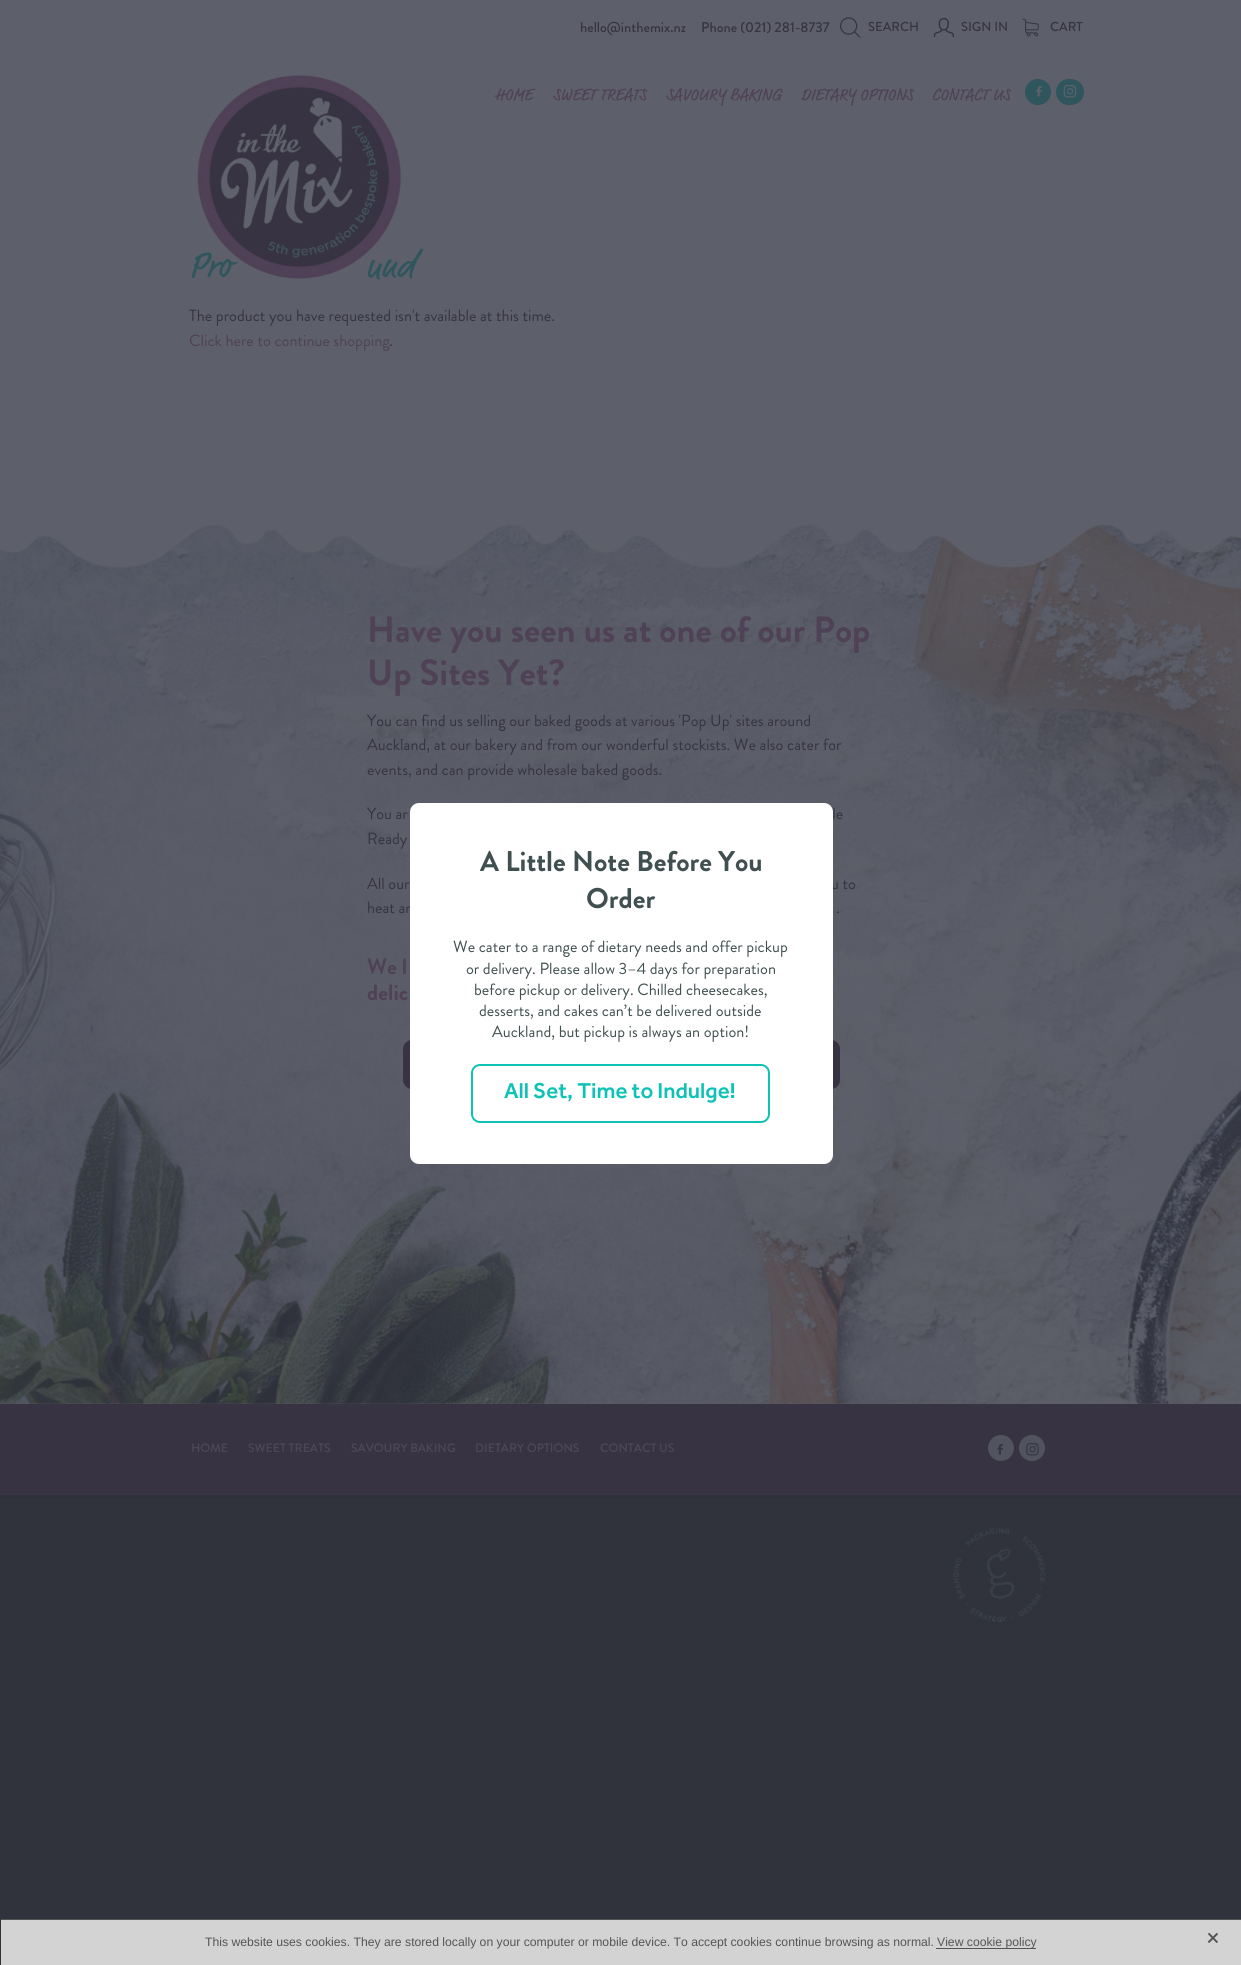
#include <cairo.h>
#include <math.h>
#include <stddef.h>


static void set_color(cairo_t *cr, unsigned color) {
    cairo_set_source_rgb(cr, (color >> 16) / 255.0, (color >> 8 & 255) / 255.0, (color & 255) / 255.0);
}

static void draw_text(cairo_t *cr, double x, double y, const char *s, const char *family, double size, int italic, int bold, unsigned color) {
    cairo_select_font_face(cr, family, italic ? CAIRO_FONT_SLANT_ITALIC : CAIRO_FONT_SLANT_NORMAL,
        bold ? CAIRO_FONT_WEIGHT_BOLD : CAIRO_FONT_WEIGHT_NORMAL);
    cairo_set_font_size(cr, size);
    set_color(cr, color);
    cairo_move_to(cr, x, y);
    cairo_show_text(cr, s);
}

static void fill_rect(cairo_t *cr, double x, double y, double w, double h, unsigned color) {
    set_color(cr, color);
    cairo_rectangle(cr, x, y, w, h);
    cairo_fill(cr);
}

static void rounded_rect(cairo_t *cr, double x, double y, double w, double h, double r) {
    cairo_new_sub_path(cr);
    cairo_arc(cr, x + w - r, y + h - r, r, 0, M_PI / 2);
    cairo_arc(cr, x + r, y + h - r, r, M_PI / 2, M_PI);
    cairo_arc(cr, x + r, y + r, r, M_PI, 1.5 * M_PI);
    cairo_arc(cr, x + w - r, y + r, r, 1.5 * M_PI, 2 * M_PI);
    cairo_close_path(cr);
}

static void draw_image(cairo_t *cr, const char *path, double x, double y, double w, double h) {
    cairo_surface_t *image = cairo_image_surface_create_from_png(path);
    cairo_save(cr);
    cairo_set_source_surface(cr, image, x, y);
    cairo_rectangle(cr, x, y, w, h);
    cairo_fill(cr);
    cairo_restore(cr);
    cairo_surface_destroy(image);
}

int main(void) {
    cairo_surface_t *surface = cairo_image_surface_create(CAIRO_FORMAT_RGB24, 1241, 1965);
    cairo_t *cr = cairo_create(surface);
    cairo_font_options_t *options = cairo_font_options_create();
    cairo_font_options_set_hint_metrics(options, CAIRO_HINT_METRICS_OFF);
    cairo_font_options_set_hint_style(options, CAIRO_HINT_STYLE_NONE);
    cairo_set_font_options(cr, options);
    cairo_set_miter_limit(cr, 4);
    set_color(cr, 0x5D5F6A);
    cairo_paint(cr);
    draw_text(cr, 580, 32, "hello@inthemix.nz", "Brandon Grotesque Medium", 14.25, 0, 0, 0x373342);
    draw_text(cr, 701, 32, "Phone (021) 281-8737", "Brandon Grotesque Medium", 14.25, 0, 0, 0x373342);
    draw_image(cr, "assets/img1.png", 840, 17, 21, 21);
    draw_text(cr, 868, 31, "SEARCH", "Brandon Grotesque Medium", 13, 0, 0, 0x373342);
    draw_image(cr, "assets/img2.png", 933, 17, 21, 21);
    draw_text(cr, 961, 31, "SIGN IN", "Brandon Grotesque Medium", 13, 0, 0, 0x373342);
    draw_image(cr, "assets/img3.png", 1022, 18, 17, 19);
    draw_text(cr, 1050, 31, "CART", "Brandon Grotesque Medium", 13, 0, 0, 0x373342);
    draw_text(cr, 189, 277, "Pro", "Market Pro", 36.5, 0, 0, 0x2F555D);
    draw_text(cr, 366, 277, "und", "Market Pro", 36.5, 0, 0, 0x2F555D);
    draw_image(cr, "assets/img4.png", 197, 75, 205, 204);
    draw_text(cr, 495, 100, "HOME", "Market Pro", 17, 0, 0, 0x4F4156);
    draw_text(cr, 553, 100, "SWEET TREATS", "Market Pro", 17, 0, 0, 0x4F4156);
    draw_text(cr, 666, 100, "SAVOURY BAKING", "Market Pro", 17, 0, 0, 0x4F4156);
    draw_text(cr, 801, 100, "DIETARY OPTIONS", "Market Pro", 17, 0, 0, 0x4F4156);
    draw_text(cr, 932, 100, "CONTACT US", "Market Pro", 17, 0, 0, 0x4F4156);
    set_color(cr, 0x2F555D);
    cairo_new_path(cr);
    cairo_arc(cr, 1038, 92, 13, 0, 2 * M_PI);
    cairo_fill(cr);
    draw_image(cr, "assets/img5.png", 1036, 86, 6, 11);
    rounded_rect(cr, 1056, 79, 28, 26, 13);
    cairo_fill(cr);
    draw_image(cr, "assets/img6.png", 1063, 85, 14, 13);
    draw_text(cr, 189, 321, "The product you have requested isn't available at this time.", "Brandon Grotesque", 16.25, 0, 0, 0x373342);
    draw_text(cr, 189, 346, "Click here to continue shopping", "Brandon Grotesque", 16.25, 0, 0, 0x4F4156);
    draw_text(cr, 389, 346, ".", "Brandon Grotesque", 16.25, 0, 0, 0x373342);
    draw_image(cr, "assets/img7.png", 0, 524, 1241, 880);
    draw_text(cr, 367, 642, "Have you seen us at one of our Pop", "Brandon Grotesque", 36.5, 0, 1, 0x4F4156);
    draw_text(cr, 367, 685, "Up Sites Yet?", "Brandon Grotesque", 36.5, 0, 1, 0x4F4156);
    draw_text(cr, 367, 726, "You can find us selling our baked goods at various 'Pop Up' sites around", "Brandon Grotesque", 16.25, 0, 0, 0x373342);
    draw_text(cr, 367, 750, "Auckland, at our bakery and from our wonderful stockists. We also cater for", "Brandon Grotesque", 16.25, 0, 0, 0x373342);
    draw_text(cr, 367, 775, "events, and can provide wholesale baked goods.", "Brandon Grotesque", 16.25, 0, 0, 0x373342);
    draw_text(cr, 367, 819, "You ar", "Brandon Grotesque", 16.25, 0, 0, 0x373342);
    draw_text(cr, 828, 819, "de", "Brandon Grotesque", 16.25, 0, 0, 0x373342);
    draw_text(cr, 367, 844, "Ready", "Brandon Grotesque", 16.25, 0, 0, 0x373342);
    draw_text(cr, 367, 889, "All our", "Brandon Grotesque", 16.25, 0, 0, 0x373342);
    draw_text(cr, 831, 889, "u to", "Brandon Grotesque", 16.25, 0, 0, 0x373342);
    draw_text(cr, 367, 913, "heat an", "Brandon Grotesque", 16.25, 0, 0, 0x373342);
    draw_text(cr, 836, 913, ".", "Brandon Grotesque", 16.25, 0, 0, 0x373342);
    draw_text(cr, 367, 974, "We l", "Brandon Grotesque", 22.25, 0, 1, 0x4F4156);
    draw_text(cr, 367, 1000, "delic", "Brandon Grotesque", 22.25, 0, 1, 0x4F4156);
    set_color(cr, 0x373342);
    rounded_rect(cr, 403, 1040, 437, 49, 9);
    cairo_fill(cr);
    fill_rect(cr, 0, 1404, 1241, 91, 0x373342);
    fill_rect(cr, 0, 1495, 1241, 3, 0x2E303A);
    draw_text(cr, 191, 1452, "HOME", "Brandon Grotesque Medium", 12.2, 0, 0, 0x4A4A56);
    draw_text(cr, 248, 1452, "SWEET TREATS", "Brandon Grotesque Medium", 12.2, 0, 0, 0x4A4A56);
    draw_text(cr, 351, 1452, "SAVOURY BAKING", "Brandon Grotesque Medium", 12.2, 0, 0, 0x4A4A56);
    draw_text(cr, 475, 1452, "DIETARY OPTIONS", "Brandon Grotesque Medium", 12.2, 0, 0, 0x4A4A56);
    draw_text(cr, 600, 1452, "CONTACT US", "Brandon Grotesque Medium", 12.2, 0, 0, 0x4A4A56);
    set_color(cr, 0x51545E);
    cairo_new_path(cr);
    cairo_arc(cr, 1001, 1448, 13, 0, 2 * M_PI);
    cairo_fill(cr);
    draw_image(cr, "assets/img8.png", 997, 1444, 6, 11);
    cairo_arc(cr, 1032, 1448, 13, 0, 2 * M_PI);
    cairo_fill(cr);
    draw_image(cr, "assets/img9.png", 1026, 1443, 13, 13);
    set_color(cr, 0x30323C);
    cairo_new_path(cr);
    cairo_move_to(cr, -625, 1498);
    cairo_line_to(cr, -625, 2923);
    cairo_line_to(cr, 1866, 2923);
    cairo_line_to(cr, 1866, 1498);
    cairo_line_to(cr, 1241, 1498);
    cairo_line_to(cr, 1241, 1672);
    cairo_line_to(cr, 0, 1672);
    cairo_line_to(cr, 0, 1498);
    cairo_close_path(cr);
    cairo_fill(cr);
    fill_rect(cr, 0, 1498, 1241, 174, 0x30323C);
    draw_image(cr, "assets/img10.png", 953, 1527, 93, 96);
    set_color(cr, 0xFFFFFF);
    rounded_rect(cr, 410, 803, 423, 361, 9);
    cairo_fill(cr);
    draw_text(cr, 480, 871, "A Little Note Before You", "Brandon Grotesque", 28.5, 0, 1, 0x404F4F);
    draw_text(cr, 586, 908, "Order", "Brandon Grotesque", 28.5, 0, 1, 0x404F4F);
    draw_text(cr, 453, 952, "We cater to a range of dietary needs and offer pickup", "Brandon Grotesque", 16.25, 0, 0, 0x404F4F);
    draw_text(cr, 466, 974, "or delivery. Please allow 3–4 days for preparation", "Brandon Grotesque", 16.25, 0, 0, 0x404F4F);
    draw_text(cr, 474, 995, "before pickup or delivery. Chilled cheesecakes,", "Brandon Grotesque", 16.25, 0, 0, 0x404F4F);
    draw_text(cr, 479, 1016, "desserts, and cakes can’t be delivered outside", "Brandon Grotesque", 16.25, 0, 0, 0x404F4F);
    draw_text(cr, 492, 1037, "Auckland, but pickup is always an option!", "Brandon Grotesque", 16.25, 0, 0, 0x404F4F);
    rounded_rect(cr, 472, 1065, 297, 57, 8);
    set_color(cr, 0x0EC3B6);
    cairo_stroke(cr);
    draw_text(cr, 504, 1098, "All Set, Time to Indulge!", "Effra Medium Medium", 22.25, 0, 0, 0x0EC3B6);
    fill_rect(cr, 1, 1920, 1240, 45, 0xD3D3D4);
    fill_rect(cr, 1, 1919, 1240, 1, 0x545455);
    draw_text(cr, 205, 1946, "This website uses cookies. They are stored locally on your computer or mobile device. To accept cookies continue browsing as normal.", "Liberation Sans", 12.2, 0, 0, 0x555555);
    fill_rect(cr, 936, 1948, 100, 1, 0x555555);
    draw_text(cr, 937, 1946, "View cookie policy", "Liberation Sans", 12.2, 0, 0, 0x555555);
    draw_image(cr, "assets/img11.png", 1207, 1932, 11, 11);
    cairo_surface_write_to_png(surface, "output.png");
    cairo_font_options_destroy(options);
    cairo_destroy(cr);
    cairo_surface_destroy(surface);
    return 0;
}
